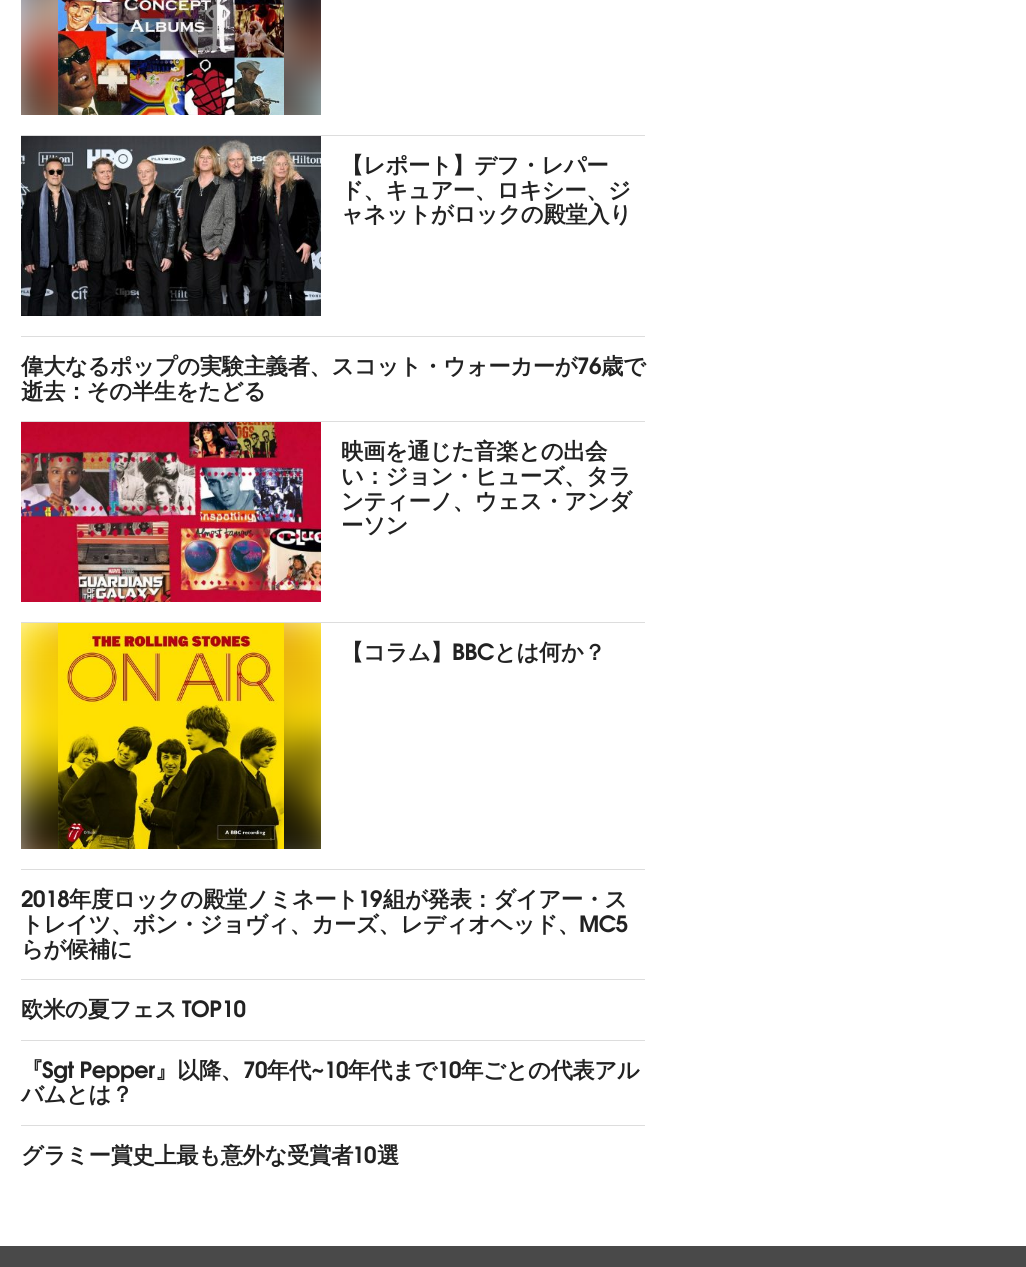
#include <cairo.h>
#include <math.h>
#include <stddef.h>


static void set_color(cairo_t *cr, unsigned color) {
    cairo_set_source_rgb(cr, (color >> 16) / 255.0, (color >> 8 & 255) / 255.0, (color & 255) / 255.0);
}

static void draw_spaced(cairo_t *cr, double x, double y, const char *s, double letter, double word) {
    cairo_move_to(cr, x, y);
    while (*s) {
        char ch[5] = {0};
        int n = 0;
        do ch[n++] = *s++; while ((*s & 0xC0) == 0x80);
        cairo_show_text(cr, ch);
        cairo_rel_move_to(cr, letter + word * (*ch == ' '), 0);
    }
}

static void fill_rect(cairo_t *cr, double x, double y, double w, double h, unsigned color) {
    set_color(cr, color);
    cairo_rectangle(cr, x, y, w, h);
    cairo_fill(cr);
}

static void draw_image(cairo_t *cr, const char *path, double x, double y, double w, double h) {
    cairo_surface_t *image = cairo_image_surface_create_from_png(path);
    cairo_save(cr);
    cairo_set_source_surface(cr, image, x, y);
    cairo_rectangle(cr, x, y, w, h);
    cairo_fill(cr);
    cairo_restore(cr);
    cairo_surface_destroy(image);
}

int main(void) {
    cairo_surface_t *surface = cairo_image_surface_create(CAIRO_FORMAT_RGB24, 1026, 1267);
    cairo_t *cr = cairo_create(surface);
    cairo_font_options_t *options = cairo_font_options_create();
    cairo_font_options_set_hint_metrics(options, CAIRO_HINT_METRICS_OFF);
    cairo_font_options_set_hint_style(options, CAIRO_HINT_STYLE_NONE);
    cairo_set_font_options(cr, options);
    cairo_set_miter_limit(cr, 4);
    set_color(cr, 0xFFFFFF);
    cairo_paint(cr);
    draw_image(cr, "assets/img1.png", 21, 0, 300, 115);
    draw_image(cr, "assets/img2.png", 58, 0, 226, 115);
    fill_rect(cr, 21, 135, 624, 1, 0xDDDDDD);
    draw_image(cr, "assets/img3.png", 21, 136, 300, 180);
    cairo_select_font_face(cr, "WenQuanYi Zen Hei", CAIRO_FONT_SLANT_NORMAL, CAIRO_FONT_WEIGHT_BOLD);
    cairo_set_font_size(cr, 22.4);
    set_color(cr, 0x222222);
    draw_spaced(cr, 341, 173, "【レポート】デフ・レパー", -0.45, 0);
    draw_spaced(cr, 341, 198, "ド、キュアー、ロキシー、ジ", -0.45, 0);
    draw_spaced(cr, 341, 222, "ャネットがロックの殿堂入り", -0.45, 0);
    fill_rect(cr, 21, 336, 624, 1, 0xDDDDDD);
    set_color(cr, 0x222222);
    draw_spaced(cr, 21, 374, "偉大なるポップの実験主義者、スコット・ウォーカーが", -0.45, 0);
    cairo_select_font_face(cr, "TeX Gyre Adventor", CAIRO_FONT_SLANT_NORMAL, CAIRO_FONT_WEIGHT_BOLD);
    draw_spaced(cr, 577, 374, "76", -0.45, 0);
    cairo_select_font_face(cr, "WenQuanYi Zen Hei", CAIRO_FONT_SLANT_NORMAL, CAIRO_FONT_WEIGHT_BOLD);
    draw_spaced(cr, 601, 374, "歳で", -0.45, 0);
    draw_spaced(cr, 21, 399, "逝去：その半生をたどる", -0.45, 0);
    fill_rect(cr, 21, 421, 624, 1, 0xDDDDDD);
    draw_image(cr, "assets/img4.png", 21, 422, 300, 180);
    set_color(cr, 0x222222);
    draw_spaced(cr, 341, 459, "映画を通じた音楽との出会", -0.45, 0);
    draw_spaced(cr, 341, 484, "い：ジョン・ヒューズ、タラ", -0.45, 0);
    draw_spaced(cr, 341, 509, "ンティーノ、ウェス・アンダ", -0.45, 0);
    draw_spaced(cr, 341, 533, "ーソン", -0.45, 0);
    fill_rect(cr, 21, 622, 624, 1, 0xDDDDDD);
    draw_image(cr, "assets/img5.png", 21, 623, 300, 226);
    draw_image(cr, "assets/img6.png", 58, 623, 226, 226);
    set_color(cr, 0x222222);
    draw_spaced(cr, 341, 660, "【コラム】", -0.45, 0);
    cairo_select_font_face(cr, "TeX Gyre Adventor", CAIRO_FONT_SLANT_NORMAL, CAIRO_FONT_WEIGHT_BOLD);
    draw_spaced(cr, 452, 660, "BBC", -0.45, 0);
    cairo_select_font_face(cr, "WenQuanYi Zen Hei", CAIRO_FONT_SLANT_NORMAL, CAIRO_FONT_WEIGHT_BOLD);
    draw_spaced(cr, 494, 660, "とは何か？", -0.45, 0);
    fill_rect(cr, 21, 869, 624, 1, 0xDDDDDD);
    cairo_select_font_face(cr, "TeX Gyre Adventor", CAIRO_FONT_SLANT_NORMAL, CAIRO_FONT_WEIGHT_BOLD);
    set_color(cr, 0x222222);
    draw_spaced(cr, 21, 907, "2018", -0.45, 0);
    cairo_select_font_face(cr, "WenQuanYi Zen Hei", CAIRO_FONT_SLANT_NORMAL, CAIRO_FONT_WEIGHT_BOLD);
    draw_spaced(cr, 69, 907, "年度ロックの殿堂ノミネート", -0.45, 0);
    cairo_select_font_face(cr, "TeX Gyre Adventor", CAIRO_FONT_SLANT_NORMAL, CAIRO_FONT_WEIGHT_BOLD);
    draw_spaced(cr, 358, 907, "19", -0.45, 0);
    cairo_select_font_face(cr, "WenQuanYi Zen Hei", CAIRO_FONT_SLANT_NORMAL, CAIRO_FONT_WEIGHT_BOLD);
    draw_spaced(cr, 383, 907, "組が発表：ダイアー・ス", -0.45, 0);
    draw_spaced(cr, 21, 932, "トレイツ、ボン・ジョヴィ、カーズ、レディオヘッド、", -0.45, 0);
    cairo_select_font_face(cr, "TeX Gyre Adventor", CAIRO_FONT_SLANT_NORMAL, CAIRO_FONT_WEIGHT_BOLD);
    draw_spaced(cr, 579, 932, "MC5", -0.45, 0);
    cairo_select_font_face(cr, "WenQuanYi Zen Hei", CAIRO_FONT_SLANT_NORMAL, CAIRO_FONT_WEIGHT_BOLD);
    draw_spaced(cr, 21, 957, "らが候補に", -0.45, 0);
    fill_rect(cr, 21, 979, 624, 1, 0xDDDDDD);
    set_color(cr, 0x222222);
    draw_spaced(cr, 21, 1017, "欧米の夏フェス", -0.45, 0);
    cairo_select_font_face(cr, "TeX Gyre Adventor", CAIRO_FONT_SLANT_NORMAL, CAIRO_FONT_WEIGHT_BOLD);
    draw_spaced(cr, 182, 1017, "TOP10", -0.45, 0);
    fill_rect(cr, 21, 1040, 624, 1, 0xDDDDDD);
    cairo_select_font_face(cr, "WenQuanYi Zen Hei", CAIRO_FONT_SLANT_NORMAL, CAIRO_FONT_WEIGHT_BOLD);
    set_color(cr, 0x222222);
    draw_spaced(cr, 21, 1078, "『", -0.45, 0);
    cairo_select_font_face(cr, "TeX Gyre Adventor", CAIRO_FONT_SLANT_NORMAL, CAIRO_FONT_WEIGHT_BOLD);
    draw_spaced(cr, 42, 1078, "Sgt Pepper", -0.45, 0);
    cairo_select_font_face(cr, "WenQuanYi Zen Hei", CAIRO_FONT_SLANT_NORMAL, CAIRO_FONT_WEIGHT_BOLD);
    draw_spaced(cr, 155, 1078, "』以降、", -0.45, 0);
    cairo_select_font_face(cr, "TeX Gyre Adventor", CAIRO_FONT_SLANT_NORMAL, CAIRO_FONT_WEIGHT_BOLD);
    draw_spaced(cr, 243, 1078, "70", -0.45, 0);
    cairo_select_font_face(cr, "WenQuanYi Zen Hei", CAIRO_FONT_SLANT_NORMAL, CAIRO_FONT_WEIGHT_BOLD);
    draw_spaced(cr, 267, 1078, "年代", -0.45, 0);
    cairo_select_font_face(cr, "TeX Gyre Adventor", CAIRO_FONT_SLANT_NORMAL, CAIRO_FONT_WEIGHT_BOLD);
    draw_spaced(cr, 311, 1078, "~10", -0.45, 0);
    cairo_select_font_face(cr, "WenQuanYi Zen Hei", CAIRO_FONT_SLANT_NORMAL, CAIRO_FONT_WEIGHT_BOLD);
    draw_spaced(cr, 348, 1078, "年代まで", -0.45, 0);
    cairo_select_font_face(cr, "TeX Gyre Adventor", CAIRO_FONT_SLANT_NORMAL, CAIRO_FONT_WEIGHT_BOLD);
    draw_spaced(cr, 437, 1078, "10", -0.45, 0);
    cairo_select_font_face(cr, "WenQuanYi Zen Hei", CAIRO_FONT_SLANT_NORMAL, CAIRO_FONT_WEIGHT_BOLD);
    draw_spaced(cr, 461, 1078, "年ごとの代表アル", -0.45, 0);
    draw_spaced(cr, 21, 1102, "バムとは？", -0.45, 0);
    fill_rect(cr, 21, 1125, 624, 1, 0xDDDDDD);
    set_color(cr, 0x222222);
    draw_spaced(cr, 21, 1163, "グラミー賞史上最も意外な受賞者", -0.45, 0);
    cairo_select_font_face(cr, "TeX Gyre Adventor", CAIRO_FONT_SLANT_NORMAL, CAIRO_FONT_WEIGHT_BOLD);
    draw_spaced(cr, 352, 1163, "10", -0.45, 0);
    cairo_select_font_face(cr, "WenQuanYi Zen Hei", CAIRO_FONT_SLANT_NORMAL, CAIRO_FONT_WEIGHT_BOLD);
    draw_spaced(cr, 377, 1163, "選", -0.45, 0);
    fill_rect(cr, 0, 1246, 1026, 21, 0x494949);
    cairo_surface_write_to_png(surface, "output.png");
    cairo_font_options_destroy(options);
    cairo_destroy(cr);
    cairo_surface_destroy(surface);
    return 0;
}
